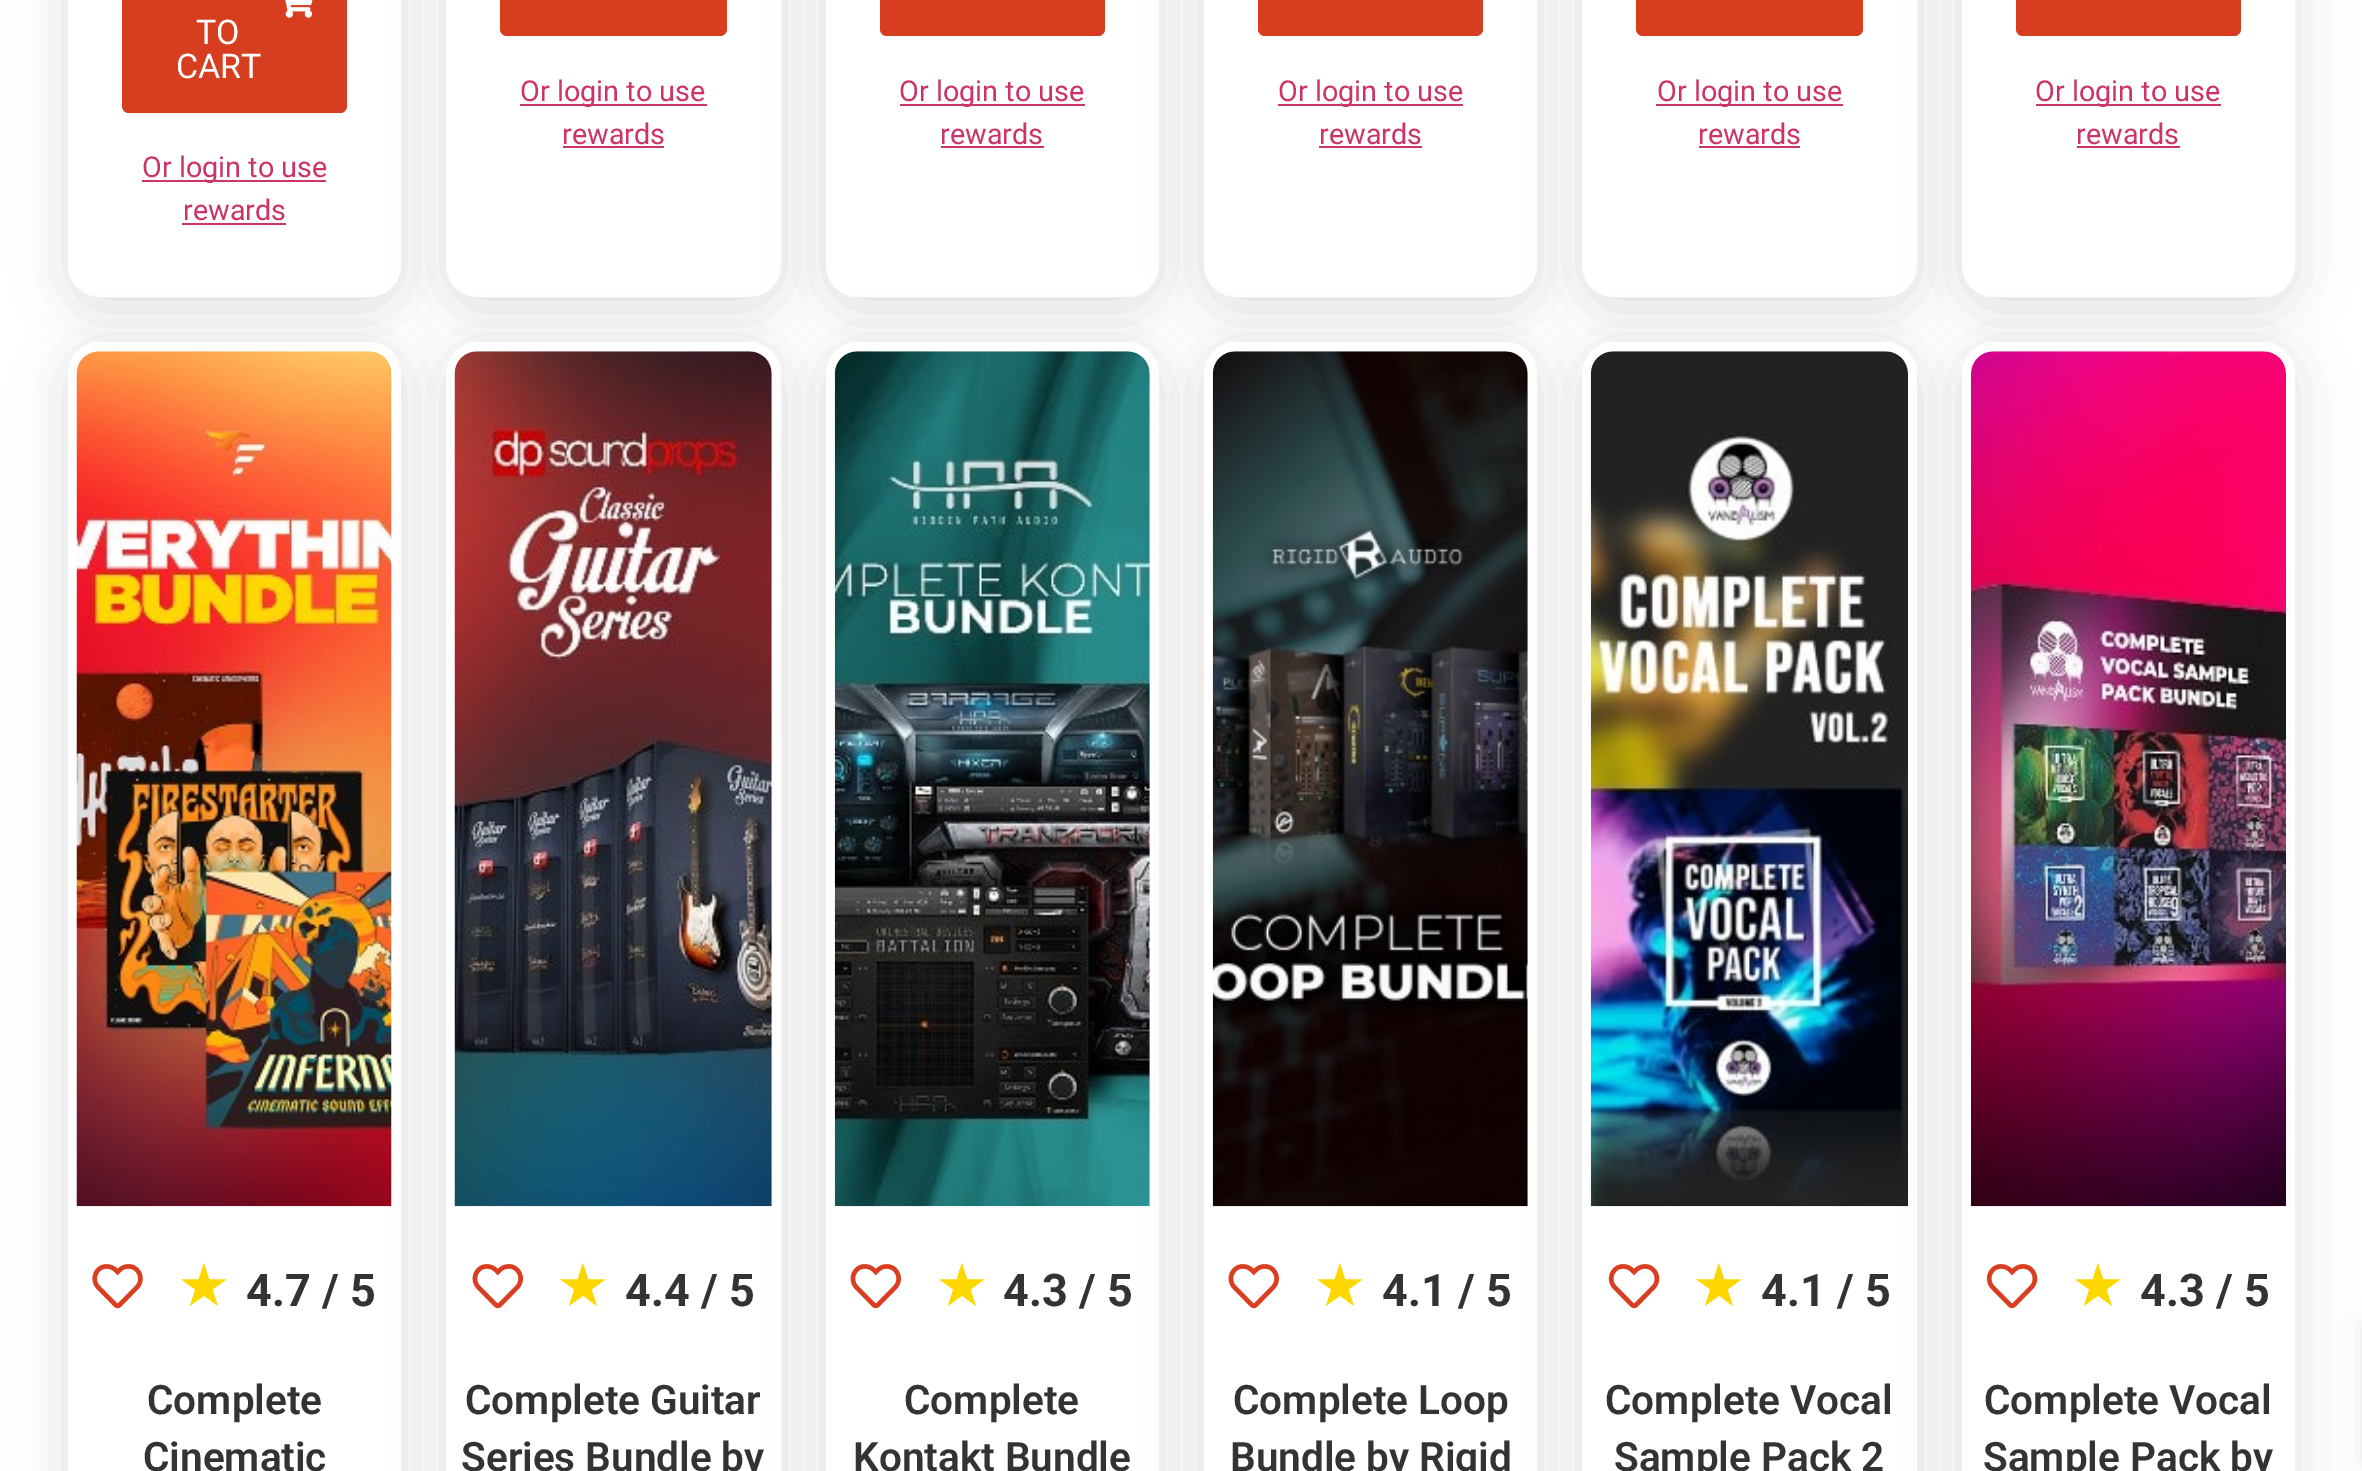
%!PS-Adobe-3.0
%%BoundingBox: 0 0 2362 1471
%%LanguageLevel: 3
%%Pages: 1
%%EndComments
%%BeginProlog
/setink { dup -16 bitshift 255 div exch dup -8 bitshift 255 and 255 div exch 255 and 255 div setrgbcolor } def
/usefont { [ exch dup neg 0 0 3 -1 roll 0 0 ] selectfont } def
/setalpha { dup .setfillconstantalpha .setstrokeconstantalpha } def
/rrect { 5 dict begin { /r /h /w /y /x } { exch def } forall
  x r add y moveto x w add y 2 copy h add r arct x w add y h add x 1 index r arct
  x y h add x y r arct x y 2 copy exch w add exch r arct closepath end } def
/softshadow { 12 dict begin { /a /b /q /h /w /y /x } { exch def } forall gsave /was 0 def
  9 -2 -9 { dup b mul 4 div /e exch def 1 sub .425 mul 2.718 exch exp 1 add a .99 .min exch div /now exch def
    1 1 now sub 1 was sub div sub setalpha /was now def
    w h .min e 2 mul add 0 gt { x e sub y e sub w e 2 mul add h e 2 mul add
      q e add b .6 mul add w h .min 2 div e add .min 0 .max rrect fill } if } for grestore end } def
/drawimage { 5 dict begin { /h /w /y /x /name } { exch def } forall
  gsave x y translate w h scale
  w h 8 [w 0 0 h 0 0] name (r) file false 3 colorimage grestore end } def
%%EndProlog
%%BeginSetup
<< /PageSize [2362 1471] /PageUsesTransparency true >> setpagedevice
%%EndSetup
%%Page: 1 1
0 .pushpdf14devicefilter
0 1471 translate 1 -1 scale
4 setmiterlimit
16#FFFFFF setink
0 0 2362 1471 rectfill
16#000000 setink
68 -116 333 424 32 28 0.12 softshadow
16#FFFFFF setink
72.5 -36.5 324 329 27.5 rrect gsave fill grestore
9 setlinewidth
stroke
16#D73E1F setink
122 -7 225 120 7 rrect fill
(img1.raw) 285 0 28 18 drawimage
/Roboto-Regular 34 usefont
16#FFFFFF setink
196 44 moveto (TO) show
176 78 moveto (CART) show
16#CC3366 setink
142 180 184 2 rectfill
/Roboto-Regular 28.75 usefont
142 177 moveto (Or login to use) show
183 220 moveto (rewards) show
182 223 104 2 rectfill
16#000000 setink
446 -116 335 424 32 28 0.12 softshadow
16#FFFFFF setink
450.5 -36.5 326 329 27.5 rrect gsave fill grestore
stroke
16#D73E1F setink
500 -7 227 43 7 rrect fill
16#CC3366 setink
520 104 187 2 rectfill
520 101 moveto (Or login to use) show
562 144 moveto (rewards) show
563 146 101 2 rectfill
16#000000 setink
826 -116 333 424 32 28 0.12 softshadow
16#FFFFFF setink
830.5 -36.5 324 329 27.5 rrect gsave fill grestore
stroke
16#D73E1F setink
880 -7 225 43 7 rrect fill
16#CC3366 setink
900 104 185 2 rectfill
899 101 moveto (Or login to use) show
940 144 moveto (rewards) show
941 146 103 2 rectfill
16#000000 setink
1204 -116 333 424 32 28 0.12 softshadow
16#FFFFFF setink
1208.5 -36.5 324 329 27.5 rrect gsave fill grestore
stroke
16#D73E1F setink
1258 -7 225 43 7 rrect fill
16#CC3366 setink
1278 104 185 2 rectfill
1278 101 moveto (Or login to use) show
1319 144 moveto (rewards) show
1319 146 103 2 rectfill
16#000000 setink
1582 -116 335 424 32 28 0.12 softshadow
16#FFFFFF setink
1586.5 -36.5 326 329 27.5 rrect gsave fill grestore
stroke
16#D73E1F setink
1636 -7 227 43 7 rrect fill
16#CC3366 setink
1656 104 187 2 rectfill
1657 101 moveto (Or login to use) show
1698 144 moveto (rewards) show
1699 146 101 2 rectfill
16#000000 setink
1962 -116 333 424 32 28 0.12 softshadow
16#FFFFFF setink
1966.5 -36.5 324 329 27.5 rrect gsave fill grestore
stroke
16#D73E1F setink
2016 -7 225 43 7 rrect fill
16#CC3366 setink
2036 104 185 2 rectfill
2035 101 moveto (Or login to use) show
2076 144 moveto (rewards) show
2077 146 103 2 rectfill
16#000000 setink
68 353 333 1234 32 28 0.12 softshadow
16#FFFFFF setink
68 342 333 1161 32 rrect fill
(img2.raw) 76 351 316 856 drawimage
(img3.raw) 92 1264 51 45 drawimage
/DejaVuSans-Regular 60 usefont
16#FFD700 setink
177 1306 moveto (★) show
/Roboto-Bold 45 usefont
16#333333 setink
246 1306 moveto (4.7 / 5) show
/Roboto-SemiBold 40.5 usefont
147 1414 moveto (Complete) show
143 1471 moveto (Cinematic) show
16#000000 setink
446 353 335 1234 32 28 0.12 softshadow
16#FFFFFF setink
450.5 346.5 326 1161 27.5 rrect gsave fill grestore
stroke
(img4.raw) 454 351 318 856 drawimage
(img5.raw) 472 1264 51 45 drawimage
/DejaVuSans-Regular 60 usefont
16#FFD700 setink
556 1306 moveto (★) show
/Roboto-Bold 45 usefont
16#333333 setink
625 1306 moveto (4.4 / 5) show
/Roboto-SemiBold 40.5 usefont
465 1414 moveto (Complete Guitar) show
461 1471 moveto (Series Bundle by) show
16#000000 setink
826 353 333 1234 32 28 0.12 softshadow
16#FFFFFF setink
830.5 346.5 324 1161 27.5 rrect gsave fill grestore
stroke
(img6.raw) 834 351 316 856 drawimage
(img5.raw) 850 1264 51 45 drawimage
/DejaVuSans-Regular 60 usefont
16#FFD700 setink
935 1306 moveto (★) show
/Roboto-Bold 45 usefont
16#333333 setink
1003 1306 moveto (4.3 / 5) show
/Roboto-SemiBold 40.5 usefont
904 1414 moveto (Complete) show
853 1471 moveto (Kontakt Bundle) show
16#000000 setink
1204 353 333 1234 32 28 0.12 softshadow
16#FFFFFF setink
1208.5 346.5 324 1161 27.5 rrect gsave fill grestore
stroke
(img7.raw) 1212 351 316 856 drawimage
(img5.raw) 1228 1264 51 45 drawimage
/DejaVuSans-Regular 60 usefont
16#FFD700 setink
1313 1306 moveto (★) show
/Roboto-Bold 45 usefont
16#333333 setink
1382 1306 moveto (4.1 / 5) show
/Roboto-SemiBold 40.5 usefont
1233 1414 moveto (Complete Loop) show
1230 1471 moveto (Bundle by Rigid) show
16#000000 setink
1582 353 335 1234 32 28 0.12 softshadow
16#FFFFFF setink
1582 342 335 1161 32 rrect fill
(img8.raw) 1590 351 318 856 drawimage
(img9.raw) 1608 1264 52 45 drawimage
/DejaVuSans-Regular 60 usefont
16#FFD700 setink
1692 1306 moveto (★) show
/Roboto-Bold 45 usefont
16#333333 setink
1761 1306 moveto (4.1 / 5) show
/Roboto-SemiBold 40.5 usefont
1605 1414 moveto (Complete Vocal) show
1614 1471 moveto (Sample Pack 2) show
16#000000 setink
1962 353 333 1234 32 28 0.12 softshadow
16#FFFFFF setink
1962 342 333 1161 32 rrect fill
(img10.raw) 1971 351 315 856 drawimage
(img9.raw) 1986 1264 52 45 drawimage
/DejaVuSans-Regular 60 usefont
16#FFD700 setink
2071 1306 moveto (★) show
/Roboto-Bold 45 usefont
16#333333 setink
2140 1306 moveto (4.3 / 5) show
/Roboto-SemiBold 40.5 usefont
1984 1414 moveto (Complete Vocal) show
1983 1471 moveto (Sample Pack by) show
16#000000 setink
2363 1325 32 135 0 11 0.1 softshadow
.poppdf14devicefilter showpage
%%EOF
